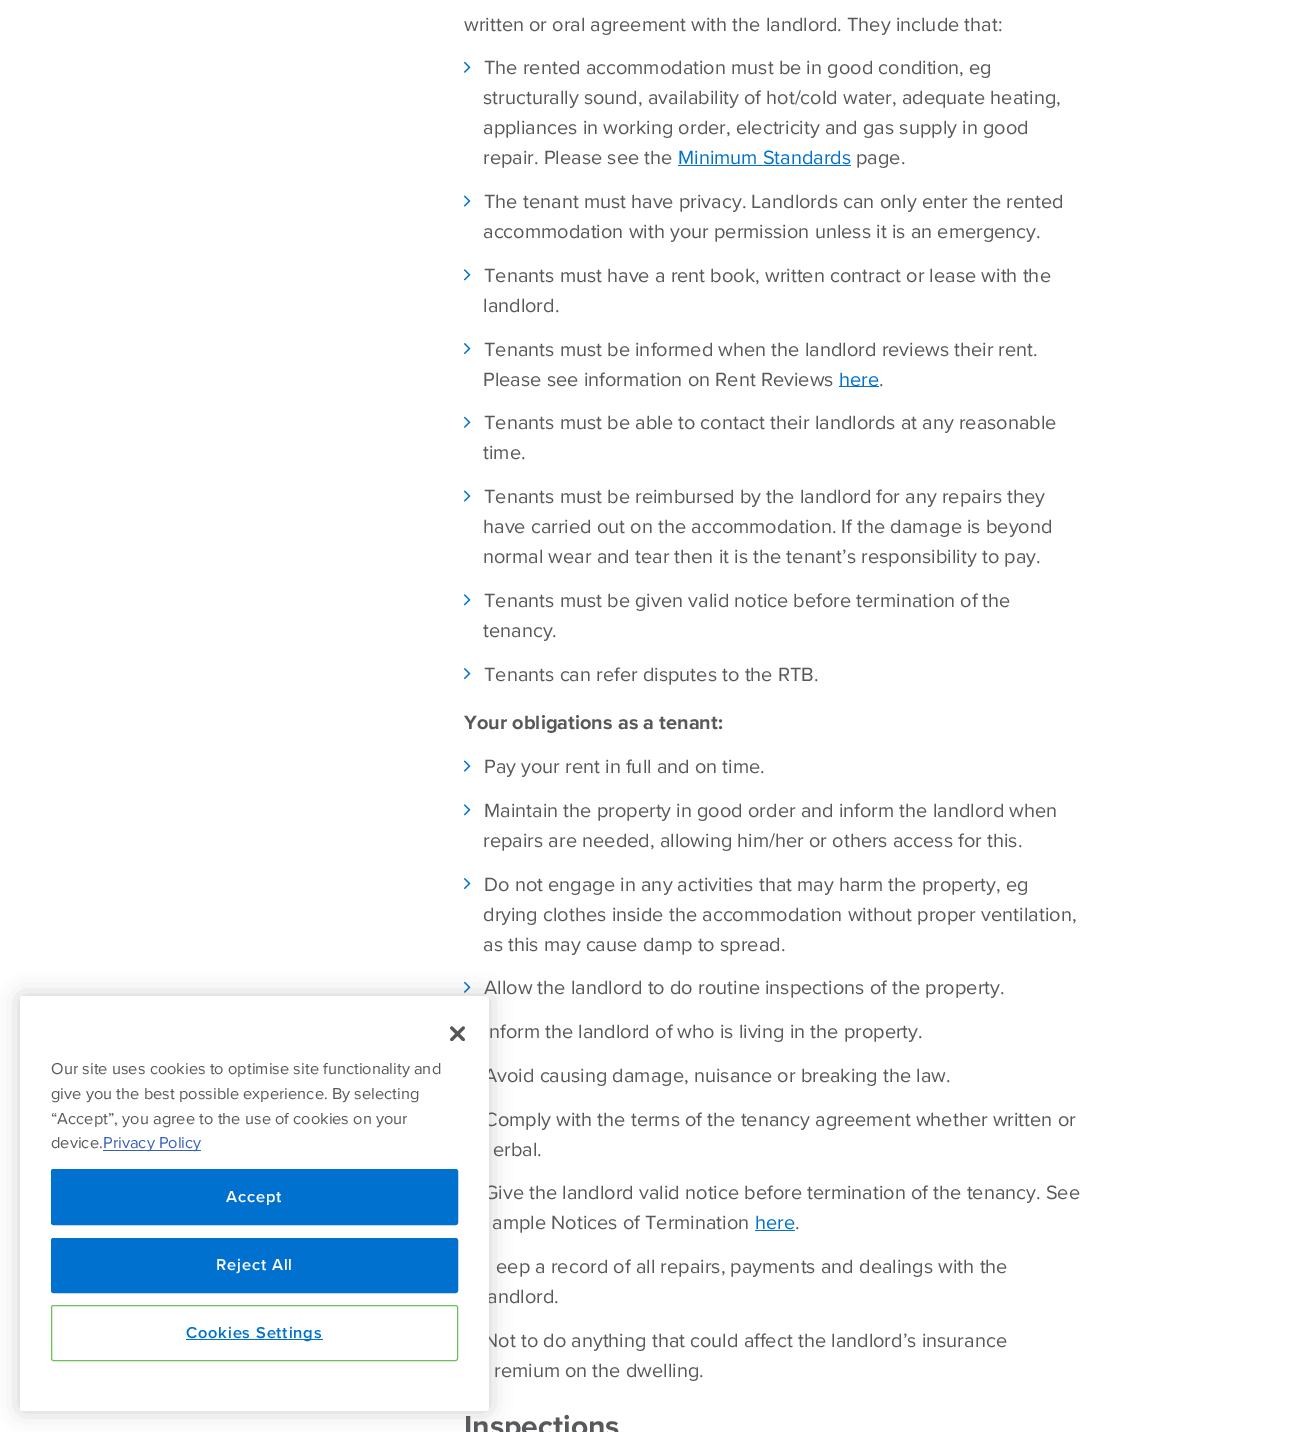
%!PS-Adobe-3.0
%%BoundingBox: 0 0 1295 1432
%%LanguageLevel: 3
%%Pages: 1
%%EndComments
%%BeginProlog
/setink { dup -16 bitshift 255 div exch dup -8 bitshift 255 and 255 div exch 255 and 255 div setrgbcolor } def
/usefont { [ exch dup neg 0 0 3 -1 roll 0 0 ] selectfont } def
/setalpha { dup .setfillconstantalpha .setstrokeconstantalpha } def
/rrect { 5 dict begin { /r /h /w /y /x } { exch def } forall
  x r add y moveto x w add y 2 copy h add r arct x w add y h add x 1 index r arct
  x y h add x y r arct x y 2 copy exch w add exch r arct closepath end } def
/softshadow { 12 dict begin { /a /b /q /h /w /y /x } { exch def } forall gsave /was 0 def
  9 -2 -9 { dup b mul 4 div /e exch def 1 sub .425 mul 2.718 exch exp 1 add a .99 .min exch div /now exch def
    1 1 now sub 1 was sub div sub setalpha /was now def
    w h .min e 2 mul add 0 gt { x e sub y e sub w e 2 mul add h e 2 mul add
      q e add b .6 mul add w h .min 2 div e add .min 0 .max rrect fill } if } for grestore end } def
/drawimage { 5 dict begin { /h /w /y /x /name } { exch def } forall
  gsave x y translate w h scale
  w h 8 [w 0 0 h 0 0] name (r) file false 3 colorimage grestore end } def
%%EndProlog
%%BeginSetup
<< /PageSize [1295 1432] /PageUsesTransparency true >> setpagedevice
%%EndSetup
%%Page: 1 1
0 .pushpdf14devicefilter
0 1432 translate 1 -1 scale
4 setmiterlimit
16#FFFFFF setink
0 0 1295 1432 rectfill
(img2.raw) 463 981 8 12 drawimage
16#000000 setink
20 996 469 415 3 11 0.2 softshadow
/ProximaNova-Regular 20 usefont
16#58595B setink
[
    [(Allow the landlord to do routine inspections of the property.) 484 994]
    [(Avoid causing damage, nuisance or breaking the law.) 484 1082]
    [(Comply with the terms of the tenancy agreement whether written or) 484 1126]
    [(Give the landlord valid notice before termination of the tenancy. See) 484 1199]
    [(andlord.) 487 1303]
    [(Not to do anything that could affect the landlord’s insurance) 484 1347]
] { aload pop moveto show } forall
16#FFFFFF setink
20 996 469 415 3 rrect fill
(img1.raw) 450 1026 15 15 drawimage
/ProximaNova-Regular 16.4 usefont
16#58595B setink
[
    [(Our site uses cookies to optimise site functionality and) 51 1074]
    [(give you the best possible experience. By selecting) 51 1099]
    [(“Accept”, you agree to the use of cookies on your) 51 1124]
    [(device.) 51 1148]
] { aload pop moveto show } forall
16#3860BE setink
103 1150 98 1 rectfill
103 1148 moveto (Privacy Policy) show
16#0071CE setink
51.5 1169.5 406 55 2 rrect gsave fill grestore
stroke
/ProximaNova-SemiBold 16.4 usefont
16#FFFFFF setink
226 1202 moveto 0.8 0 (Accept) ashow
16#0071CE setink
51.5 1238.5 406 54 2 rrect gsave fill grestore
stroke
16#FFFFFF setink
216 1270 moveto 0.8 0 (Reject All) ashow
16#6DBF58 setink
51.5 1305.5 406 55 2 rrect stroke
16#0071CE setink
186 1339 137 1 rectfill
186 1338 moveto 0.8 0 (Cookies Settings) ashow
/ProximaNova-Regular 20 usefont
16#58595B setink
464 31 moveto (written or oral agreement with the landlord. They include that:) show
(img2.raw) 463 61 8 12 drawimage
[
    [(The rented accommodation must be in good condition, eg) 484 74]
    [(structurally sound, availability of hot/cold water, adequate heating,) 483 104]
    [(appliances in working order, electricity and gas supply in good) 483 134]
    [(repair. Please see the) 483 164]
] { aload pop moveto show } forall
16#0071CE setink
678 164 moveto (Minimum Standards) show
678 165 173 1 rectfill
16#58595B setink
856 164 moveto (page.) show
(img3.raw) 463 195 8 12 drawimage
484 208 moveto (The tenant must have privacy. Landlords can only enter the rented) show
483 238 moveto (accommodation with your permission unless it is an emergency.) show
(img4.raw) 463 269 8 12 drawimage
484 282 moveto (Tenants must have a rent book, written contract or lease with the) show
483 312 moveto (landlord.) show
(img5.raw) 463 343 8 12 drawimage
484 356 moveto (Tenants must be informed when the landlord reviews their rent.) show
483 386 moveto (Please see information on Rent Reviews) show
16#0071CE setink
839 386 40 1 rectfill
839 386 moveto (here) show
16#58595B setink
879 386 moveto (.) show
(img2.raw) 463 416 8 12 drawimage
484 429 moveto (Tenants must be able to contact their landlords at any reasonable) show
483 459 moveto (time.) show
(img3.raw) 463 490 8 12 drawimage
[
    [(Tenants must be reimbursed by the landlord for any repairs they) 484 503]
    [(have carried out on the accommodation. If the damage is beyond) 483 533]
    [(normal wear and tear then it is the tenant’s responsibility to pay.) 483 563]
] { aload pop moveto show } forall
(img4.raw) 463 594 8 12 drawimage
484 607 moveto (Tenants must be given valid notice before termination of the) show
483 637 moveto (tenancy.) show
(img5.raw) 463 668 8 12 drawimage
484 681 moveto (Tenants can refer disputes to the RTB.) show
/ProximaNova-Bold 20 usefont
464 729 moveto (Your obligations as a tenant:) show
(img3.raw) 463 760 8 12 drawimage
/ProximaNova-Regular 20 usefont
484 773 moveto (Pay your rent in full and on time.) show
(img4.raw) 463 804 8 12 drawimage
484 817 moveto (Maintain the property in good order and inform the landlord when) show
483 847 moveto (repairs are needed, allowing him/her or others access for this.) show
(img5.raw) 463 878 8 12 drawimage
[
    [(Do not engage in any activities that may harm the property, eg) 484 891]
    [(drying clothes inside the accommodation without proper ventilation,) 483 921]
    [(as this may cause damp to spread.) 483 951]
    [(nform the landlord of who is living in the property.) 489 1038]
    [(erbal.) 493 1156]
    [(ample Notices of Termination) 492 1229]
] { aload pop moveto show } forall
16#0071CE setink
755 1229 moveto (here) show
755 1230 40 1 rectfill
16#58595B setink
[
    [(.) 795 1229]
    [(eep a record of all repairs, payments and dealings with the) 496 1273]
    [(remium on the dwelling.) 494 1377]
] { aload pop moveto show } forall
/ProximaNova-Bold 30 usefont
464 1436 moveto (Inspections) show
.poppdf14devicefilter showpage
%%EOF
